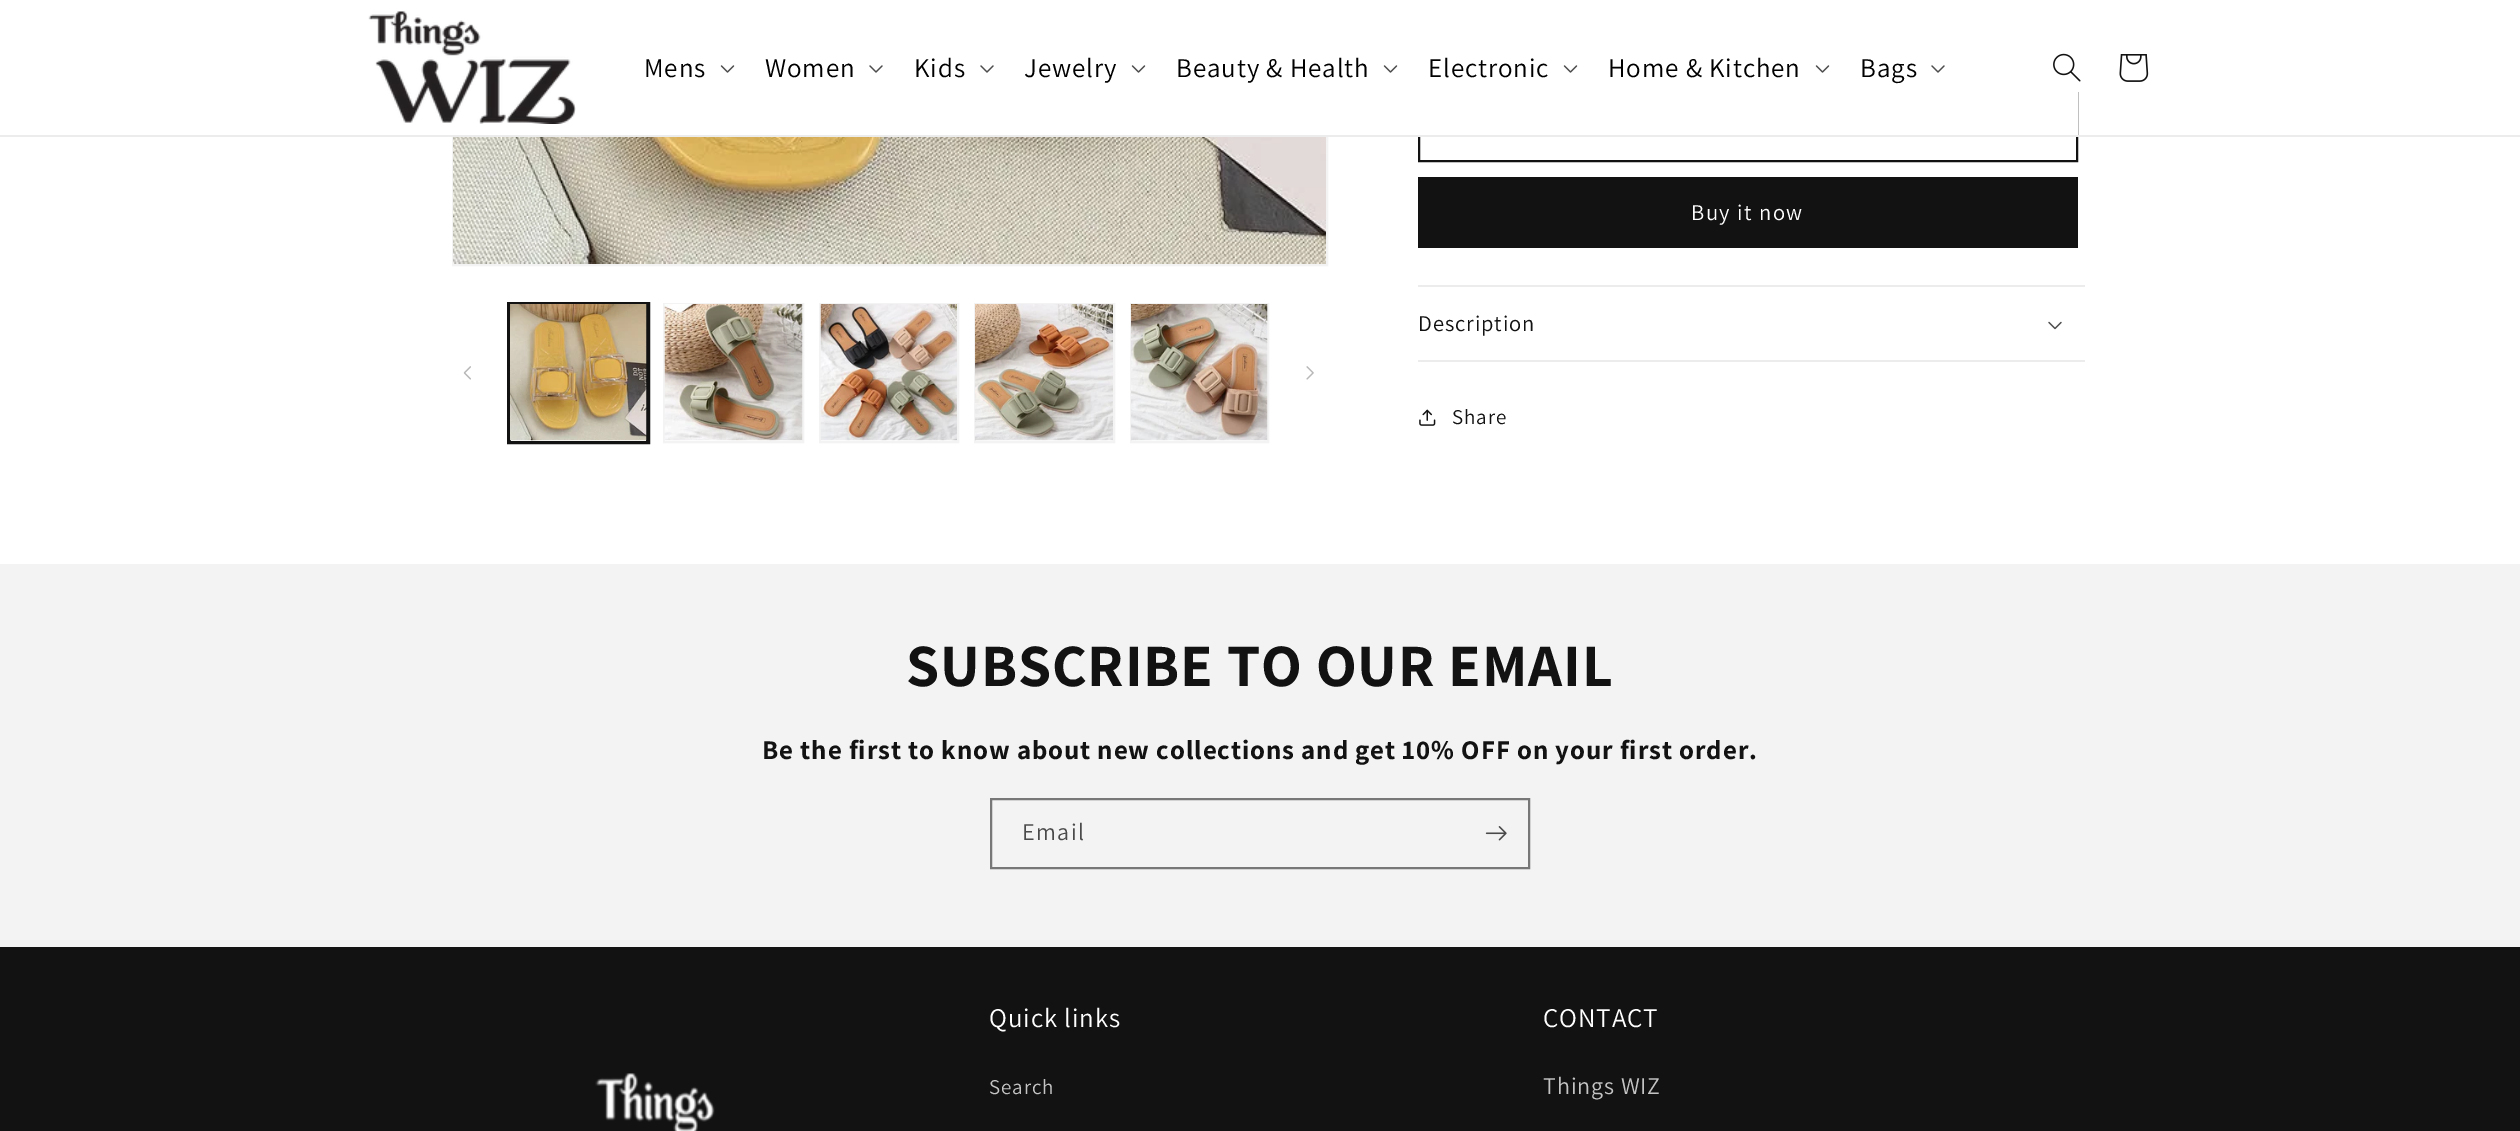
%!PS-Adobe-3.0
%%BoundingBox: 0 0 2520 1131
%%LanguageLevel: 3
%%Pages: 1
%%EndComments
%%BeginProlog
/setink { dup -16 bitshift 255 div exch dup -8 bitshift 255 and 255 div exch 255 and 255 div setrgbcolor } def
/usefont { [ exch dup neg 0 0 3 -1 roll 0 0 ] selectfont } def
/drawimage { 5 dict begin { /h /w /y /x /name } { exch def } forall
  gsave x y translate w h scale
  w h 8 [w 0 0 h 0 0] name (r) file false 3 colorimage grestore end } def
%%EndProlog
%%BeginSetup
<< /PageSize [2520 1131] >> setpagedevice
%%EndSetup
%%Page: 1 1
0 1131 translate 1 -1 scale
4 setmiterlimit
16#FFFFFF setink
0 0 2520 1131 rectfill
16#F3F3F3 setink
2 setlinewidth
453 -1 874 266 rectstroke
16#121212 setink
1419 93 658 68 rectstroke
16#FFFFFF setink
452 0 1626 135 rectfill
16#ECECEC setink
0 135 2520 2 rectfill
(img1.raw) 368 11 208 113 drawimage
/Assistant-Regular 27 usefont
16#000000 setink
644 77 moveto 0.9 0 (Mens) ashow
(img2.raw) 720 65 15 8 drawimage
765 77 moveto 0.9 0 (Women) ashow
(img3.raw) 869 65 14 8 drawimage
914 77 moveto 0.9 0 (Kids) ashow
(img3.raw) 980 65 14 8 drawimage
1024 77 moveto 0.9 0 (Jewelry) ashow
(img2.raw) 1131 65 15 8 drawimage
1176 77 moveto 0.9 0 (Beauty & Health) ashow
(img2.raw) 1383 65 15 8 drawimage
1428 77 moveto 0.9 0 (Electronic) ashow
(img2.raw) 1563 65 15 8 drawimage
1608 77 moveto 0.9 0 (Home & Kitchen) ashow
(img2.raw) 1815 65 15 8 drawimage
1860 77 moveto 0.9 0 (Bags) ashow
(img3.raw) 1931 65 14 8 drawimage
(img4.raw) 2053 53 28 29 drawimage
(img5.raw) 2119 54 30 28 drawimage
(img6.raw) 453 137 873 127 drawimage
(img7.raw) 463 366 8 14 drawimage
16#121212 setink
508 303 141 140 rectstroke
510 304 137 138 rectstroke
(img8.raw) 510 304 137 137 drawimage
16#F3F3F3 setink
664 304 139 138 rectstroke
(img9.raw) 664 304 139 137 drawimage
820 304 138 138 rectstroke
(img10.raw) 820 304 137 137 drawimage
975 304 139 138 rectstroke
(img11.raw) 975 304 138 137 drawimage
1131 304 137 138 rectstroke
(img12.raw) 1131 304 137 137 drawimage
(img13.raw) 1306 366 8 14 drawimage
16#121212 setink
1418 177 660 71 rectfill
/Assistant-Regular 22.5 usefont
16#FFFFFF setink
1691 220 moveto 1.5 0 (Buy it now) ashow
16#ECECEC setink
1418 285 667 2 rectfill
1418 360 667 2 rectfill
16#121212 setink
1418 331 moveto 0.9 0 (Description) ashow
(img14.raw) 2048 321 14 9 drawimage
(img15.raw) 1419 409 17 17 drawimage
/Assistant-Regular 21 usefont
1452 424 moveto 0.9 0 (Share) ashow
16#F3F3F3 setink
0 564 2520 383 rectfill
/Assistant-Bold 60 usefont
16#121212 setink
906 686 moveto 0.9 0 (SUBSCRIBE TO OUR EMAIL) ashow
/Assistant-Bold 27 usefont
762 759 moveto 0.9 0 (Be the first to know about new collections and get 10% OFF on your first order.) ashow
16#777777 setink
991 799 538 69 rectstroke
/Assistant-Regular 24 usefont
16#4A4A4A setink
1022 840 moveto 1.5 0 (Email) ashow
(img16.raw) 1485 826 22 15 drawimage
16#121212 setink
0 947 2520 184 rectfill
(img17.raw) 595 1073 120 58 drawimage
/Assistant-Regular 27 usefont
16#FFFFFF setink
989 1027 moveto 0.9 0 (Quick links) ashow
/Assistant-Regular 21 usefont
16#C4C4C4 setink
989 1094 moveto 0.9 0 (Search) ashow
/Assistant-Regular 27 usefont
16#FFFFFF setink
1543 1027 moveto 0.9 0 (CONTACT) ashow
/Assistant-Regular 24 usefont
16#C4C4C4 setink
1543 1094 moveto 0.9 0 (Things WIZ) ashow
showpage
%%EOF
